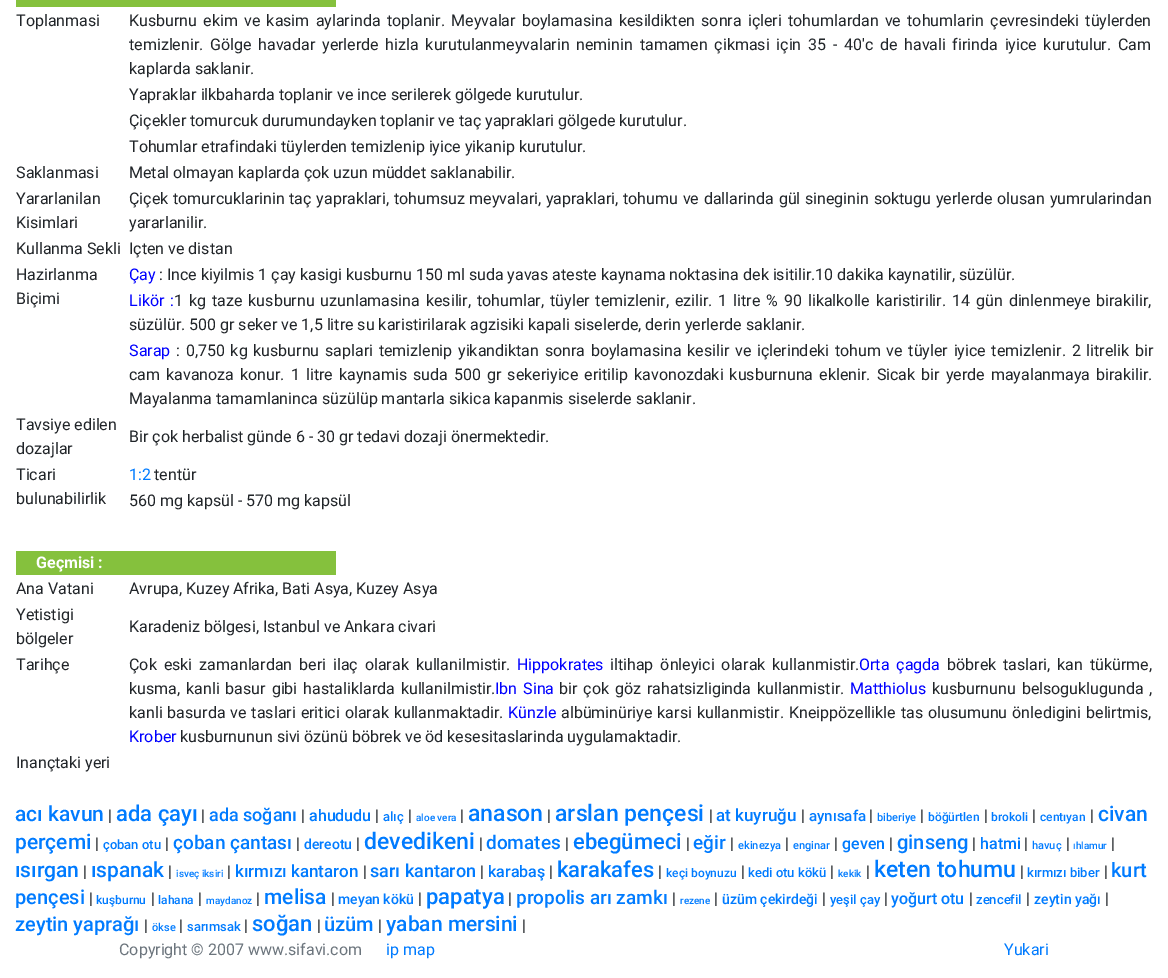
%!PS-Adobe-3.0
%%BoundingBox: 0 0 1168 978
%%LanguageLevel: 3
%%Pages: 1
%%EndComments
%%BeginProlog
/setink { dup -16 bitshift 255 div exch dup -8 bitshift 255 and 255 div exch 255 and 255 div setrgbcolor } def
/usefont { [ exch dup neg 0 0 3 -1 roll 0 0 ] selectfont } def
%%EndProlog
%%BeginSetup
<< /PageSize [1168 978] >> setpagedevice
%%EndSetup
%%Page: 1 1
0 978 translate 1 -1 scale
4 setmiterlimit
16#FFFFFF setink
0 0 1168 978 rectfill
16#85C13D setink
16 0 320 7 rectfill
/Roboto-Regular 16 usefont
16#212529 setink
16 26 moveto (Toplanmasi) show
129 26 moveto 2.25 0 32 (Kusburnu ekim ve kasim aylarinda toplanir. Meyvalar boylamasina kesildikten sonra içleri tohumlardan ve tohumlarin çevresindeki tüylerden) widthshow
129 50 moveto 2.75 0 32 (temizlenir. Gölge havadar yerlerde hizla kurutulanmeyvalarin neminin tamamen çikmasi için 35 - 40'c de havali firinda iyice kurutulur. Cam) widthshow
[
    [(kaplarda saklanir.) 129 74]
    [(Yapraklar ilkbaharda toplanir ve ince serilerek gölgede kurutulur.) 129 100]
    [(Çiçekler tomurcuk durumundayken toplanir ve taç yapraklari gölgede kurutulur.) 129 126]
    [(Tohumlar etrafindaki tüylerden temizlenip iyice yikanip kurutulur.) 129 152]
    [(Saklanmasi) 16 178]
    [(Metal olmayan kaplarda çok uzun müddet saklanabilir.) 129 178]
    [(Yararlanilan) 16 204]
    [(Kisimlari) 16 228]
] { aload pop moveto show } forall
129 204 moveto 0.8 0 32 (Çiçek tomurcuklarinin taç yapraklari, tohumsuz meyvalari, yapraklari, tohumu ve dallarinda gül sineginin soktugu yerlerde olusan yumrularindan) widthshow
[
    [(yararlanilir.) 129 228]
    [(Kullanma Sekli) 16 254]
    [(Içten ve distan) 129 254]
    [(Hazirlanma) 16 280]
    [(Biçimi) 16 304]
] { aload pop moveto show } forall
16#0000FF setink
129 280 moveto (Çay) show
16#212529 setink
159 280 moveto (: Ince kiyilmis 1 çay kasigi kusburnu 150 ml suda yavas ateste kaynama noktasina dek isitilir.10 dakika kaynatilir, süzülür.) show
16#0000FF setink
129 306 moveto 2.1 0 32 (Likör :) widthshow
16#212529 setink
174 306 moveto 2 0 32 (1 kg taze kusburnu uzunlamasina kesilir, tohumlar, tüyler temizlenir, ezilir. 1 litre % 90 likalkolle karistirilir. 14 gün dinlenmeye birakilir,) widthshow
129 330 moveto (süzülür. 500 gr seker ve 1,5 litre su karistirilarak agzisiki kapali siselerde, derin yerlerde saklanir.) show
16#0000FF setink
129 356 moveto (Sarap) show
16#212529 setink
176 356 moveto 1.75 0 32 (: 0,750 kg kusburnu saplari temizlenip yikandiktan sonra boylamasina kesilir ve içlerindeki tohum ve tüyler iyice temizlenir. 2 litrelik bir) widthshow
129 380 moveto 2.1 0 32 (cam kavanoza konur. 1 litre kaynamis suda 500 gr sekeriyice eritilip kavonozdaki kusburnuna eklenir. Sicak bir yerde mayalanmaya birakilir.) widthshow
[
    [(Mayalanma tamamlaninca süzülüp mantarla sikica kapanmis siselerde saklanir.) 129 404]
    [(Tavsiye edilen) 16 430]
    [(dozajlar) 16 454]
    [(Bir çok herbalist günde 6 - 30 gr tedavi dozaji önermektedir.) 129 442]
    [(Ticari) 16 480]
    [(bulunabilirlik) 16 504]
] { aload pop moveto show } forall
16#007BFF setink
129 480 moveto (1:2) show
16#212529 setink
154 480 moveto (tentür) show
129 506 moveto (560 mg kapsül - 570 mg kapsül) show
16#85C13D setink
16 551 320 24 rectfill
/Roboto-Bold 16 usefont
16#FFFFFF setink
36 568 moveto (Geçmisi :) show
/Roboto-Regular 16 usefont
16#212529 setink
[
    [(Ana Vatani) 16 594]
    [(Avrupa, Kuzey Afrika, Bati Asya, Kuzey Asya) 129 594]
    [(Yetistigi) 16 620]
    [(bölgeler) 16 644]
    [(Karadeniz bölgesi, Istanbul ve Ankara civari) 129 632]
    [(Tarihçe) 16 670]
] { aload pop moveto show } forall
129 670 moveto 3 0 32 (Çok eski zamanlardan beri ilaç olarak kullanilmistir.) widthshow
16#0000FF setink
517 670 moveto (Hippokrates) show
16#212529 setink
610 670 moveto 3 0 32 (iltihap önleyici olarak kullanmistir.) widthshow
16#0000FF setink
859 670 moveto 3 0 32 (Orta çagda) widthshow
16#212529 setink
947 670 moveto 3 0 32 (böbrek taslari, kan tükürme,) widthshow
129 694 moveto 2 0 32 (kusma, kanli basur gibi hastaliklarda kullanilmistir.) widthshow
16#0000FF setink
495 694 moveto 2 0 32 (Ibn Sina) widthshow
16#212529 setink
559 694 moveto 2 0 32 (bir çok göz rahatsizliginda kullanmistir.) widthshow
16#0000FF setink
850 694 moveto (Matthiolus) show
16#212529 setink
932 694 moveto 2 0 32 (kusburnunu belsoguklugunda ,) widthshow
129 718 moveto 1 0 32 (kanli basurda ve taslari eritici olarak kullanmaktadir.) widthshow
16#0000FF setink
508 718 moveto (Künzle) show
16#212529 setink
561 718 moveto 1 0 32 (albüminüriye karsi kullanmistir. Kneippözellikle tas olusumunu önledigini belirtmis,) widthshow
16#0000FF setink
129 742 moveto (Krober) show
16#212529 setink
180 742 moveto (kusburnunun sivi özünü böbrek ve öd kesesitaslarinda uygulamaktadir.) show
16 768 moveto (Inançtaki yeri) show
/Roboto-Medium 21 usefont
16#007BFF setink
15 821 moveto (acı kavun) show
/Roboto-Regular 16 usefont
16#212529 setink
108 821 moveto (|) show
/Roboto-Medium 22 usefont
16#007BFF setink
116 821 moveto (ada çayı) show
/Roboto-Regular 16 usefont
16#212529 setink
201 821 moveto (|) show
/Roboto-Medium 18 usefont
16#007BFF setink
209 821 moveto (ada soğanı) show
/Roboto-Regular 16 usefont
16#212529 setink
301 821 moveto (|) show
/Roboto-Medium 16 usefont
16#007BFF setink
309 821 moveto (ahududu) show
/Roboto-Regular 16 usefont
16#212529 setink
375 821 moveto (|) show
/Roboto-Medium 13 usefont
16#007BFF setink
383 821 moveto (alıç) show
/Roboto-Regular 16 usefont
16#212529 setink
408 821 moveto (|) show
/Roboto-Medium 10 usefont
16#007BFF setink
416 821 moveto (aloe vera) show
/Roboto-Regular 16 usefont
16#212529 setink
460 821 moveto (|) show
/Roboto-Medium 23 usefont
16#007BFF setink
468 821 moveto (anason) show
/Roboto-Regular 16 usefont
16#212529 setink
547 821 moveto (|) show
/Roboto-Medium 23 usefont
16#007BFF setink
555 821 moveto (arslan pençesi) show
/Roboto-Regular 16 usefont
16#212529 setink
709 821 moveto (|) show
/Roboto-Medium 17 usefont
16#007BFF setink
716 821 moveto (at kuyruğu) show
/Roboto-Regular 16 usefont
16#212529 setink
801 821 moveto (|) show
/Roboto-Medium 15 usefont
16#007BFF setink
809 821 moveto (aynısafa) show
/Roboto-Regular 16 usefont
16#212529 setink
869 821 moveto (|) show
/Roboto-Medium 11 usefont
16#007BFF setink
877 821 moveto (biberiye) show
/Roboto-Regular 16 usefont
16#212529 setink
920 821 moveto (|) show
/Roboto-Medium 12 usefont
16#007BFF setink
928 821 moveto (böğürtlen) show
/Roboto-Regular 16 usefont
16#212529 setink
984 821 moveto (|) show
/Roboto-Medium 12 usefont
16#007BFF setink
991 821 moveto (brokoli) show
/Roboto-Regular 16 usefont
16#212529 setink
1032 821 moveto (|) show
/Roboto-Medium 12 usefont
16#007BFF setink
1040 821 moveto (centıyan) show
/Roboto-Regular 16 usefont
16#212529 setink
1090 821 moveto (|) show
/Roboto-Medium 21 usefont
16#007BFF setink
1098 821 moveto (civan) show
15 849 moveto (perçemi) show
/Roboto-Regular 16 usefont
16#212529 setink
95 849 moveto (|) show
/Roboto-Medium 13 usefont
16#007BFF setink
103 849 moveto (çoban otu) show
/Roboto-Regular 16 usefont
16#212529 setink
165 849 moveto (|) show
/Roboto-Medium 19 usefont
16#007BFF setink
173 849 moveto (çoban çantası) show
/Roboto-Regular 16 usefont
16#212529 setink
296 849 moveto (|) show
/Roboto-Medium 14 usefont
16#007BFF setink
304 849 moveto (dereotu) show
/Roboto-Regular 16 usefont
16#212529 setink
356 849 moveto (|) show
/Roboto-Medium 23 usefont
16#007BFF setink
364 849 moveto (devedikeni) show
/Roboto-Regular 16 usefont
16#212529 setink
479 849 moveto (|) show
/Roboto-Medium 19 usefont
16#007BFF setink
486 849 moveto (domates) show
/Roboto-Regular 16 usefont
16#212529 setink
565 849 moveto (|) show
/Roboto-Medium 22 usefont
16#007BFF setink
573 849 moveto (ebegümeci) show
/Roboto-Regular 16 usefont
16#212529 setink
686 849 moveto (|) show
/Roboto-Medium 19 usefont
16#007BFF setink
693 849 moveto (eğir) show
/Roboto-Regular 16 usefont
16#212529 setink
730 849 moveto (|) show
/Roboto-Medium 11 usefont
16#007BFF setink
738 849 moveto (ekinezya) show
/Roboto-Regular 16 usefont
16#212529 setink
785 849 moveto (|) show
/Roboto-Medium 11 usefont
16#007BFF setink
793 849 moveto (enginar) show
/Roboto-Regular 16 usefont
16#212529 setink
834 849 moveto (|) show
/Roboto-Medium 16 usefont
16#007BFF setink
842 849 moveto (geven) show
/Roboto-Regular 16 usefont
16#212529 setink
889 849 moveto (|) show
/Roboto-Medium 20 usefont
16#007BFF setink
897 849 moveto (ginseng) show
/Roboto-Regular 16 usefont
16#212529 setink
972 849 moveto (|) show
/Roboto-Medium 16 usefont
16#007BFF setink
980 849 moveto (hatmi) show
/Roboto-Regular 16 usefont
16#212529 setink
1024 849 moveto (|) show
/Roboto-Medium 11 usefont
16#007BFF setink
1032 849 moveto (havuç) show
/Roboto-Regular 16 usefont
16#212529 setink
1066 849 moveto (|) show
/Roboto-Medium 10 usefont
16#007BFF setink
1073 849 moveto (ıhlamur) show
/Roboto-Regular 16 usefont
16#212529 setink
1111 849 moveto (|) show
/Roboto-Medium 21 usefont
16#007BFF setink
15 877 moveto (ısırgan) show
/Roboto-Regular 16 usefont
16#212529 setink
83 877 moveto (|) show
/Roboto-Medium 21 usefont
16#007BFF setink
91 877 moveto (ıspanak) show
/Roboto-Regular 16 usefont
16#212529 setink
168 877 moveto (|) show
/Roboto-Medium 10 usefont
16#007BFF setink
176 877 moveto (isveç iksiri) show
/Roboto-Regular 16 usefont
16#212529 setink
227 877 moveto (|) show
/Roboto-Medium 17 usefont
16#007BFF setink
235 877 moveto (kırmızı kantaron) show
/Roboto-Regular 16 usefont
16#212529 setink
363 877 moveto (|) show
/Roboto-Medium 18 usefont
16#007BFF setink
370 877 moveto (sarı kantaron) show
/Roboto-Regular 16 usefont
16#212529 setink
480 877 moveto (|) show
/Roboto-Medium 16 usefont
16#007BFF setink
488 877 moveto (karabaş) show
/Roboto-Regular 16 usefont
16#212529 setink
549 877 moveto (|) show
/Roboto-Medium 22 usefont
16#007BFF setink
557 877 moveto (karakafes) show
/Roboto-Regular 16 usefont
16#212529 setink
658 877 moveto (|) show
/Roboto-Medium 12 usefont
16#007BFF setink
666 877 moveto (keçi boynuzu) show
/Roboto-Regular 16 usefont
16#212529 setink
741 877 moveto (|) show
/Roboto-Medium 13 usefont
16#007BFF setink
748 877 moveto (kedi otu kökü) show
/Roboto-Regular 16 usefont
16#212529 setink
830 877 moveto (|) show
/Roboto-Medium 10 usefont
16#007BFF setink
838 877 moveto (kekik) show
/Roboto-Regular 16 usefont
16#212529 setink
866 877 moveto (|) show
/Roboto-Medium 23 usefont
16#007BFF setink
874 877 moveto (keten tohumu) show
/Roboto-Regular 16 usefont
16#212529 setink
1020 877 moveto (|) show
/Roboto-Medium 13 usefont
16#007BFF setink
1027 877 moveto (kırmızı biber) show
/Roboto-Regular 16 usefont
16#212529 setink
1104 877 moveto (|) show
/Roboto-Medium 20 usefont
16#007BFF setink
1111 877 moveto (kurt) show
15 904 moveto (pençesi) show
/Roboto-Regular 16 usefont
16#212529 setink
89 904 moveto (|) show
/Roboto-Medium 12 usefont
16#007BFF setink
96 904 moveto (kuşburnu) show
/Roboto-Regular 16 usefont
16#212529 setink
151 904 moveto (|) show
/Roboto-Medium 12 usefont
16#007BFF setink
158 904 moveto (lahana) show
/Roboto-Regular 16 usefont
16#212529 setink
198 904 moveto (|) show
/Roboto-Medium 10 usefont
16#007BFF setink
206 904 moveto (maydanoz) show
/Roboto-Regular 16 usefont
16#212529 setink
256 904 moveto (|) show
/Roboto-Medium 21 usefont
16#007BFF setink
264 904 moveto (melisa) show
/Roboto-Regular 16 usefont
16#212529 setink
331 904 moveto (|) show
/Roboto-Medium 14 usefont
16#007BFF setink
338 904 moveto (meyan kökü) show
/Roboto-Regular 16 usefont
16#212529 setink
418 904 moveto (|) show
/Roboto-Medium 22 usefont
16#007BFF setink
426 904 moveto (papatya) show
/Roboto-Regular 16 usefont
16#212529 setink
508 904 moveto (|) show
/Roboto-Medium 19 usefont
16#007BFF setink
516 904 moveto (propolis arı zamkı) show
/Roboto-Regular 16 usefont
16#212529 setink
672 904 moveto (|) show
/Roboto-Medium 10 usefont
16#007BFF setink
680 904 moveto (rezene) show
/Roboto-Regular 16 usefont
16#212529 setink
714 904 moveto (|) show
/Roboto-Medium 14 usefont
16#007BFF setink
722 904 moveto (üzüm çekirdeği) show
/Roboto-Regular 16 usefont
16#212529 setink
822 904 moveto (|) show
/Roboto-Medium 13 usefont
16#007BFF setink
830 904 moveto (yeşil çay) show
/Roboto-Regular 16 usefont
16#212529 setink
884 904 moveto (|) show
/Roboto-Medium 16 usefont
16#007BFF setink
891 904 moveto (yoğurt otu) show
/Roboto-Regular 16 usefont
16#212529 setink
969 904 moveto (|) show
/Roboto-Medium 13 usefont
16#007BFF setink
976 904 moveto (zencefil) show
/Roboto-Regular 16 usefont
16#212529 setink
1026 904 moveto (|) show
/Roboto-Medium 14 usefont
16#007BFF setink
1034 904 moveto (zeytin yağı) show
/Roboto-Regular 16 usefont
16#212529 setink
1105 904 moveto (|) show
/Roboto-Medium 20 usefont
16#007BFF setink
15 931 moveto (zeytin yaprağı) show
/Roboto-Regular 16 usefont
16#212529 setink
144 931 moveto (|) show
/Roboto-Medium 11 usefont
16#007BFF setink
152 931 moveto (ökse) show
/Roboto-Regular 16 usefont
16#212529 setink
179 931 moveto (|) show
/Roboto-Medium 13 usefont
16#007BFF setink
187 931 moveto (sarımsak) show
/Roboto-Regular 16 usefont
16#212529 setink
244 931 moveto (|) show
/Roboto-Medium 22 usefont
16#007BFF setink
252 931 moveto (soğan) show
/Roboto-Regular 16 usefont
16#212529 setink
317 931 moveto (|) show
/Roboto-Medium 20 usefont
16#007BFF setink
324 931 moveto (üzüm) show
/Roboto-Regular 16 usefont
16#212529 setink
378 931 moveto (|) show
/Roboto-Medium 21 usefont
16#007BFF setink
386 931 moveto (yaban mersini) show
/Roboto-Regular 16 usefont
16#212529 setink
522 931 moveto (|) show
16#6C757D setink
119 955 moveto (Copyright © 2007 www.sifavi.com) show
16#007BFF setink
386 955 moveto (ip map) show
1004 955 moveto (Yukari) show
showpage
%%EOF
